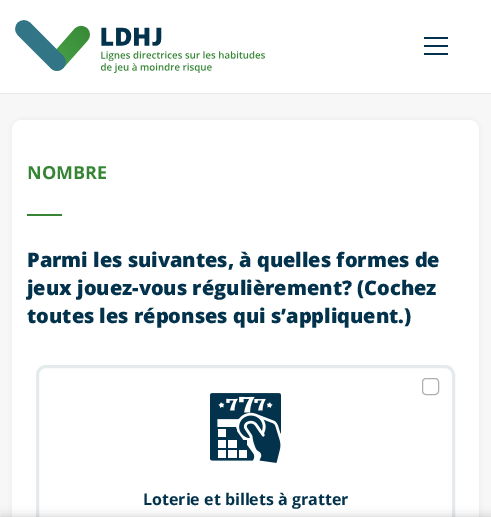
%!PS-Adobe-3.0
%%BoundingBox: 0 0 491 517
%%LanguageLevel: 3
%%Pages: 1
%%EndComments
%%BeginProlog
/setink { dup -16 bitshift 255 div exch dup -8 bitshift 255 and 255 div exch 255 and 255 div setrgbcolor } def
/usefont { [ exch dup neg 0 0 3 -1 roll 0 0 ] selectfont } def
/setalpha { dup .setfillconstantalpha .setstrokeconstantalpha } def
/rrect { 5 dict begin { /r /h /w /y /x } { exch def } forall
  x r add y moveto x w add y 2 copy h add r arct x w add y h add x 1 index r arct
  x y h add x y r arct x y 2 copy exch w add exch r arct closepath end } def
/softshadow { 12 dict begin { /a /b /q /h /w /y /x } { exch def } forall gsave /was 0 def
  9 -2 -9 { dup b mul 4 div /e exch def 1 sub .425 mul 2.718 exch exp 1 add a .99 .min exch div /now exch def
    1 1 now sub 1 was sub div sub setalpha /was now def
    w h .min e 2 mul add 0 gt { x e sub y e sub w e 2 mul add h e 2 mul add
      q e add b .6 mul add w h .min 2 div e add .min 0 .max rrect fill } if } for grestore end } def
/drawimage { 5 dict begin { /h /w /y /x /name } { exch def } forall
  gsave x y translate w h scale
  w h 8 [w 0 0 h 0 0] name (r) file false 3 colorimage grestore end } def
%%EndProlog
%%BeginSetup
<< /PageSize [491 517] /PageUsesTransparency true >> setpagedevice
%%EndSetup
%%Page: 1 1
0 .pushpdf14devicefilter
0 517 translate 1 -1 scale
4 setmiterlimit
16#F7F7F8 setink
0 0 491 517 rectfill
16#FFFFFF setink
0 0 491 93 rectfill
16#E5EAED setink
0 93 491 1 rectfill
(img1.raw) 15 20 250 53 drawimage
[
    [424 37 24 2 16#03334C]
    [424 45 24 2 16#03334C]
    [424 53 24 2 16#03334C]
] { aload pop setink rectfill } forall
16#949494 setink
12 120 467 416 10 3 0.15 softshadow
16#FFFFFF setink
12 120 467 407 10 rrect fill
/OpenSans-Bold 18 usefont
16#358534 setink
27 179 moveto (NOMBRE) show
27 214 35 2 rectfill
/OpenSans-ExtraBold 20 usefont
16#03334C setink
[
    [(Parmi les suivantes, à quelles formes de) 27 267]
    [(jeux jouez-vous régulièrement? \(Cochez) 27 295]
    [(toutes les réponses qui s’appliquent.\)) 27 323]
] { aload pop moveto show } forall
16#E5EAED setink
3 setlinewidth
37.5 366.5 416 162 8.5 rrect stroke
16#AFAFAF setink
1 setlinewidth
422.5 378.5 16 16 3.5 rrect stroke
(img2.raw) 210 393 71 70 drawimage
/OpenSans-Bold 16 usefont
16#03334C setink
143 505 moveto (Loterie et billets à gratter) show
16#000000 setink
0 517 491 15 0 5 0.2 softshadow
.poppdf14devicefilter showpage
%%EOF
